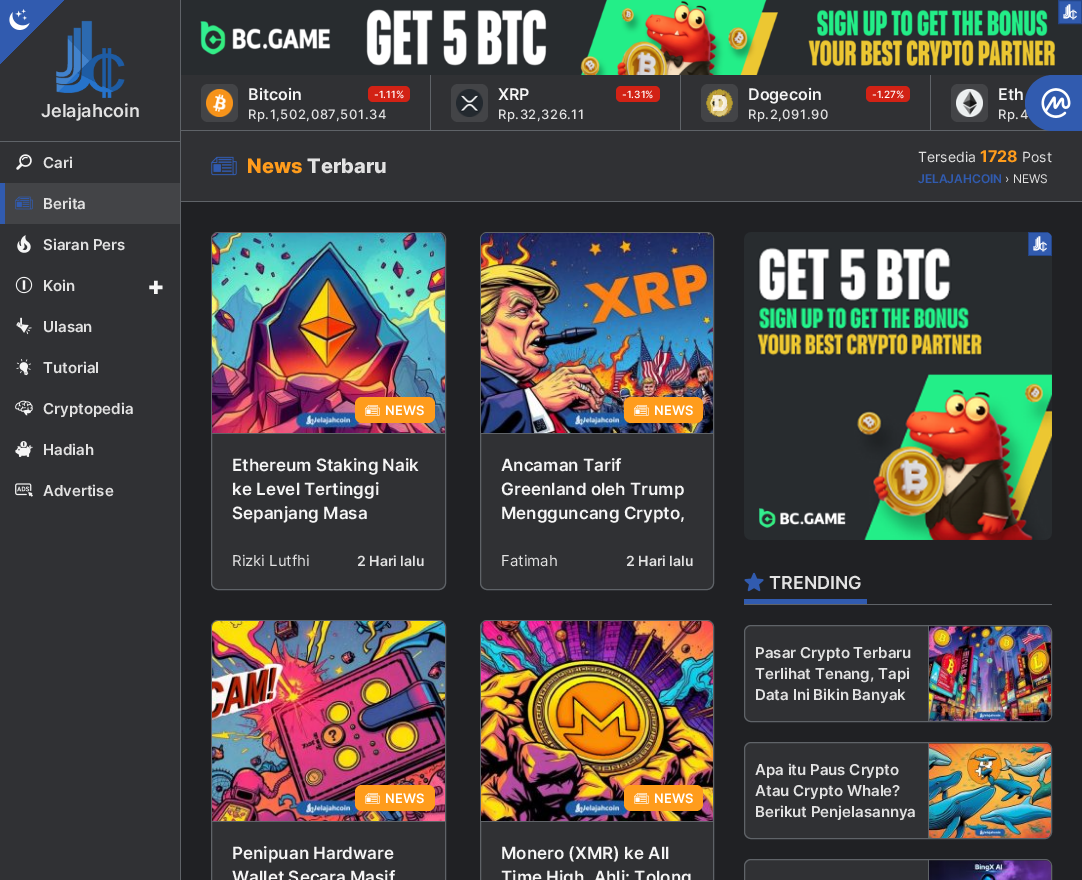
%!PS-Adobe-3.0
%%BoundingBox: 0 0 1082 880
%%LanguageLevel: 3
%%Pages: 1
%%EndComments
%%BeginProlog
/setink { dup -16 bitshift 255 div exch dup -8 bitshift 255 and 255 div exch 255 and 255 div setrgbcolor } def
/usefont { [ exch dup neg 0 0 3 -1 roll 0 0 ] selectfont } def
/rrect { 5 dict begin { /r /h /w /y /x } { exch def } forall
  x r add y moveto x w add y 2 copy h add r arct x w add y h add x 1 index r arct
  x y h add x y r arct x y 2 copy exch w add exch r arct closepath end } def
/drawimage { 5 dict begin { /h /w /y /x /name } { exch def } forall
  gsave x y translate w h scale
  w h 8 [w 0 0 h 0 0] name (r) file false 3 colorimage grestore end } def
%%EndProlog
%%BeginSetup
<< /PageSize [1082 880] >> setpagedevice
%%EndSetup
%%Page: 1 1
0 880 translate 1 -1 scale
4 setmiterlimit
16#202124 setink
0 0 1082 880 rectfill
16#303134 setink
0 0 180 880 rectfill
16#5F6368 setink
180 0 1 880 rectfill
(img2.raw) 56 20 69 78 drawimage
gsave 0 0 moveto 65 0 lineto 65 64 lineto 0 64 lineto closepath clip newpath
<< /ShadingType 2 /ColorSpace /DeviceRGB /Coords [0 0 65 65] /Extend [true true] /Function << /FunctionType 3 /Domain [0 1] /Functions [<< /FunctionType 2 /Domain [0 1] /C0 [0.192 0.357 0.686] /C1 [0.192 0.357 0.686] /N 1 >> << /FunctionType 2 /Domain [0 1] /C0 [0.188 0.192 0.204] /C1 [0.188 0.192 0.204] /N 1 >>] /Bounds [0.5] /Encode [0 1 0 1] >> >> shfill grestore
(img1.raw) 9 9 21 21 drawimage
0 141 180 1 rectfill
/Inter-SemiBold 18 usefont
16#E2E2E2 setink
41 117 moveto (Jelajahcoin) show
(img3.raw) 16 154 16 16 drawimage
/Inter-SemiBold 15 usefont
43 168 moveto (Cari) show
16#434447 setink
5 183 175 41 rectfill
16#315BAF setink
0 183 5 41 rectfill
(img4.raw) 15 196 18 14 drawimage
16#E2E2E2 setink
43 209 moveto (Berita) show
(img5.raw) 17 235 14 18 drawimage
43 250 moveto (Siaran Pers) show
(img6.raw) 15 276 18 18 drawimage
43 291 moveto (Koin) show
/Inter-ExtraBold 26 usefont
16#F5F5F5 setink
147 295 moveto (+) show
(img7.raw) 16 317 16 18 drawimage
/Inter-SemiBold 15 usefont
16#E2E2E2 setink
43 332 moveto (Ulasan) show
(img8.raw) 16 359 15 17 drawimage
43 373 moveto (Tutorial) show
(img9.raw) 15 400 18 16 drawimage
43 414 moveto (Cryptopedia) show
(img10.raw) 15 441 18 16 drawimage
43 455 moveto (Hadiah) show
(img11.raw) 15 483 18 14 drawimage
43 496 moveto (Advertise) show
(img12.raw) 181 0 901 75 drawimage
16#315BAF setink
1058.5 0.5 moveto 1081.5 0.5 lineto 1081.5 23.5 lineto 1058.5 23.5 lineto closepath gsave fill grestore
16#254688 setink
stroke
(img13.raw) 1063 4 14 16 drawimage
[
    [181 75 872 55 16#303134]
    [181 130 872 1 16#5F6368]
    [430 75 1 55 16#5F6368]
] { aload pop setink rectfill } forall
16#434447 setink
201 84 37 38 7 rrect fill
(img14.raw) 206 89 27 28 drawimage
/Inter-SemiBold 16 usefont
16#F5F5F5 setink
248 100 moveto (Bitcoin) show
16#D22215 setink
368 86 42 16 5 rrect fill
/Inter-Medium 10 usefont
16#FFFFFF setink
374 98 moveto (-1.11%) show
/Inter-Medium 13 usefont
16#E2E2E2 setink
248 119 moveto 0.5 0 (Rp.1,502,087,501.34) ashow
16#5F6368 setink
680 75 1 55 rectfill
16#434447 setink
451 84 37 38 7 rrect fill
(img15.raw) 456 89 27 28 drawimage
/Inter-SemiBold 16 usefont
16#F5F5F5 setink
498 100 moveto (XRP) show
16#D22215 setink
616 86 44 16 5 rrect fill
/Inter-Medium 10 usefont
16#FFFFFF setink
622 98 moveto (-1.31%) show
/Inter-Medium 13 usefont
16#E2E2E2 setink
498 119 moveto 0.5 0 (Rp.32,326.11) ashow
16#5F6368 setink
930 75 1 55 rectfill
16#434447 setink
701 84 37 38 7 rrect fill
(img16.raw) 706 89 27 28 drawimage
/Inter-SemiBold 16 usefont
16#F5F5F5 setink
748 100 moveto (Dogecoin) show
16#D22215 setink
866 86 44 16 5 rrect fill
/Inter-Medium 10 usefont
16#FFFFFF setink
872 98 moveto (-1.27%) show
/Inter-Medium 13 usefont
16#E2E2E2 setink
748 119 moveto 0.5 0 (Rp.2,091.90) ashow
16#434447 setink
951 84 37 38 7 rrect fill
(img17.raw) 956 89 27 28 drawimage
/Inter-SemiBold 16 usefont
16#F5F5F5 setink
998 100 moveto (Eth) show
/Inter-Medium 13 usefont
16#E2E2E2 setink
998 119 moveto 0.5 0 (Rp.4) ashow
16#315BAF setink
1053 75 moveto 1082 75 lineto 1082 131 lineto 1053 131 lineto 1037.5 131 1025 118.5 1025 103 curveto 1025 87.5 1037.5 75 1053 75 curveto closepath fill
(img18.raw) 1041 88 30 30 drawimage
16#303134 setink
181 131 901 70 rectfill
16#5F6368 setink
181 201 901 1 rectfill
(img19.raw) 211 156 26 20 drawimage
/Inter-ExtraBold 20 usefont
16#FF9C1C setink
247 173 moveto (News) show
16#E2E2E2 setink
307 173 moveto (Terbaru) show
/Inter-Regular 14 usefont
918 162 moveto (Tersedia) show
/Inter-Bold 16 usefont
16#FF9C1C setink
980 162 moveto (1728) show
/Inter-Regular 14 usefont
16#E2E2E2 setink
1022 162 moveto (Post) show
/Inter-SemiBold 12 usefont
16#315BAF setink
918 183 moveto (JELAJAHCOIN) show
/Inter-Regular 12 usefont
16#E2E2E2 setink
1005 183 moveto (› NEWS) show
16#303134 setink
211.5 232.5 234 357 6.5 rrect gsave fill grestore
16#5F6368 setink
stroke
212 433 233 1 rectfill
(img20.raw) 212 233 233 200 drawimage
16#FF9C1C setink
355 397 80 26 7 rrect fill
(img21.raw) 365 405 15 11 drawimage
/Inter-SemiBold 13 usefont
16#FFFFFF setink
385 415 moveto (NEWS) show
/Inter-SemiBold 17 usefont
16#F5F5F5 setink
[
    [(Ethereum Staking Naik) 232 471]
    [(ke Level Tertinggi) 232 495]
    [(Sepanjang Masa) 232 519]
] { aload pop moveto show } forall
/Inter-Regular 15 usefont
16#E2E2E2 setink
232 566 moveto (Rizki Lutfhi) show
/Inter-SemiBold 14 usefont
357 566 moveto (2 Hari lalu) show
16#303134 setink
480.5 232.5 233 357 6.5 rrect gsave fill grestore
16#5F6368 setink
stroke
481 433 232 1 rectfill
(img22.raw) 481 233 232 200 drawimage
16#FF9C1C setink
624 397 79 26 7 rrect fill
(img21.raw) 634 405 15 11 drawimage
/Inter-SemiBold 13 usefont
16#FFFFFF setink
654 415 moveto (NEWS) show
/Inter-SemiBold 17 usefont
16#F5F5F5 setink
[
    [(Ancaman Tarif) 501 471]
    [(Greenland oleh Trump) 501 495]
    [(Mengguncang Crypto,) 501 519]
] { aload pop moveto show } forall
/Inter-Regular 15 usefont
16#E2E2E2 setink
501 566 moveto (Fatimah) show
/Inter-SemiBold 14 usefont
626 566 moveto (2 Hari lalu) show
16#303134 setink
211.5 620.5 234 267 6.5 rrect gsave fill grestore
16#5F6368 setink
stroke
212 821 233 1 rectfill
(img23.raw) 212 621 233 200 drawimage
16#FF9C1C setink
355 785 80 26 7 rrect fill
(img21.raw) 365 793 15 11 drawimage
/Inter-SemiBold 13 usefont
16#FFFFFF setink
385 803 moveto (NEWS) show
/Inter-SemiBold 17 usefont
16#F5F5F5 setink
232 859 moveto (Penipuan Hardware) show
232 883 moveto (Wallet Secara Masif) show
16#303134 setink
480.5 620.5 233 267 6.5 rrect gsave fill grestore
16#5F6368 setink
stroke
481 821 232 1 rectfill
(img24.raw) 481 621 232 200 drawimage
16#FF9C1C setink
624 785 79 26 7 rrect fill
(img21.raw) 634 793 15 11 drawimage
/Inter-SemiBold 13 usefont
16#FFFFFF setink
654 803 moveto (NEWS) show
/Inter-SemiBold 17 usefont
16#F5F5F5 setink
501 859 moveto (Monero \(XMR\) ke All) show
501 883 moveto (Time High, Ahli: Tolong) show
(img25.raw) 744 232 308 308 drawimage
16#315BAF setink
1028 232 moveto 1045 232 lineto 1049 232 1052 235 1052 239 curveto 1052 256 lineto 1028 256 lineto closepath fill
16#254688 setink
1028 232 moveto 1028 256 lineto 1052 256 lineto 1052 239 lineto 1052 237.5 1051.5 236.5 1051 235.5 curveto 1051 255 lineto 1029 255 lineto 1029 233 lineto 1048.5 233 lineto 1047.5 232.5 1046.5 232 1045 232 curveto closepath fill
(img13.raw) 1033 236 14 16 drawimage
16#5F6368 setink
744 604 308 1 rectfill
16#315BAF setink
744 599 123 5 rectfill
(img26.raw) 744 572 20 20 drawimage
/Inter-SemiBold 18 usefont
16#E2E2E2 setink
769 589 moveto (TRENDING) show
16#303134 setink
744.5 625.5 307 96 6.5 rrect gsave fill grestore
16#5F6368 setink
stroke
928 626 1 95 rectfill
/Inter-SemiBold 15 usefont
16#E2E2E2 setink
[
    [(Pasar Crypto Terbaru) 755 658]
    [(Terlihat Tenang, Tapi) 755 679]
    [(Data Ini Bikin Banyak) 755 700]
] { aload pop moveto show } forall
(img27.raw) 929 626 122 95 drawimage
16#303134 setink
744.5 742.5 307 96 6.5 rrect gsave fill grestore
16#5F6368 setink
stroke
928 743 1 95 rectfill
16#E2E2E2 setink
[
    [(Apa itu Paus Crypto) 755 775]
    [(Atau Crypto Whale?) 755 796]
    [(Berikut Penjelasannya) 755 817]
] { aload pop moveto show } forall
(img28.raw) 929 743 122 95 drawimage
16#303134 setink
744.5 859.5 307 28 6.5 rrect gsave fill grestore
16#5F6368 setink
stroke
928 860 1 20 rectfill
(img29.raw) 929 860 122 20 drawimage
showpage
%%EOF
